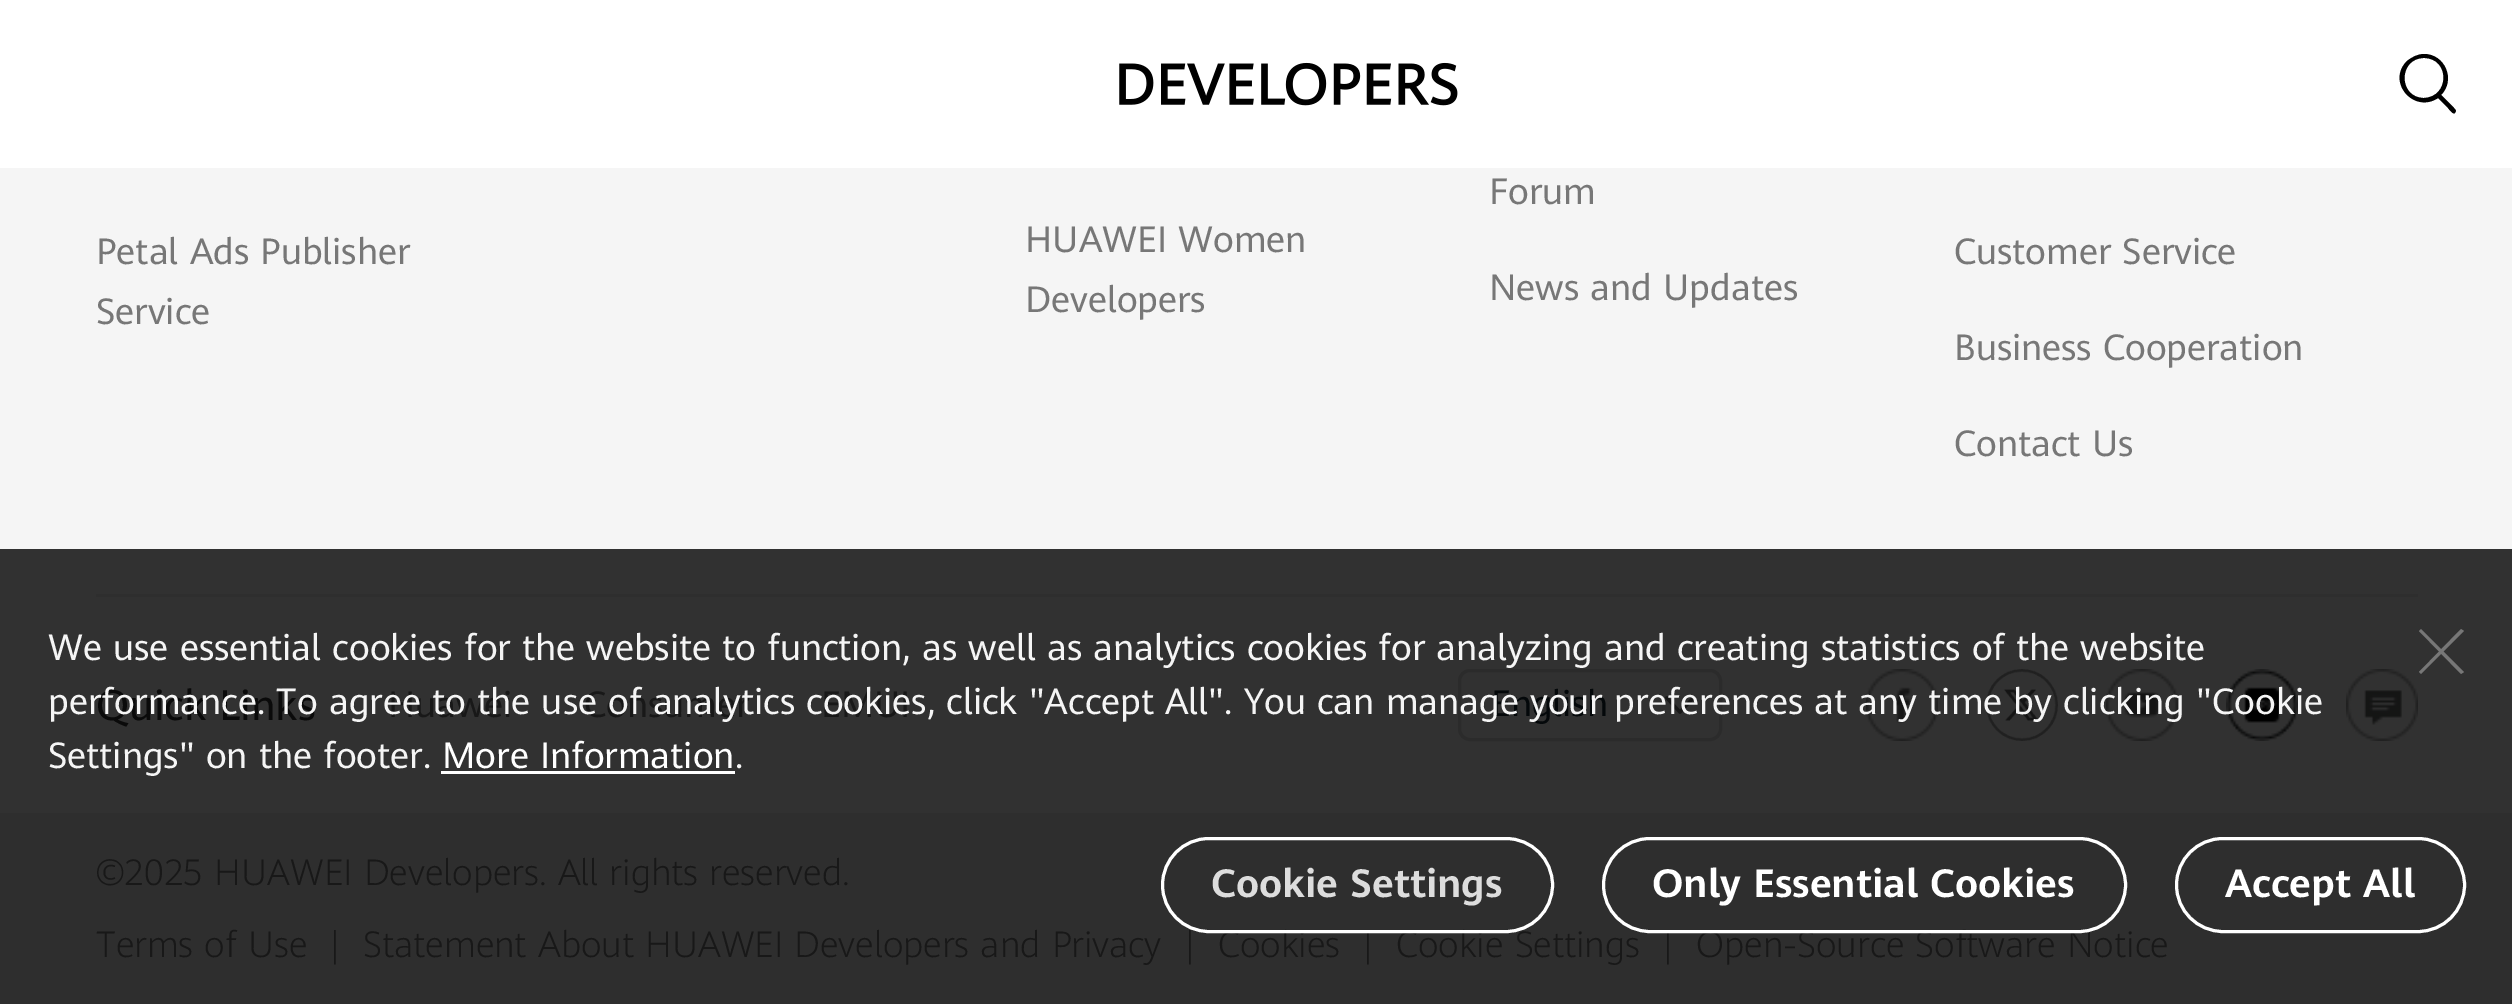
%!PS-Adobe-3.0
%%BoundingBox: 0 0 2512 1004
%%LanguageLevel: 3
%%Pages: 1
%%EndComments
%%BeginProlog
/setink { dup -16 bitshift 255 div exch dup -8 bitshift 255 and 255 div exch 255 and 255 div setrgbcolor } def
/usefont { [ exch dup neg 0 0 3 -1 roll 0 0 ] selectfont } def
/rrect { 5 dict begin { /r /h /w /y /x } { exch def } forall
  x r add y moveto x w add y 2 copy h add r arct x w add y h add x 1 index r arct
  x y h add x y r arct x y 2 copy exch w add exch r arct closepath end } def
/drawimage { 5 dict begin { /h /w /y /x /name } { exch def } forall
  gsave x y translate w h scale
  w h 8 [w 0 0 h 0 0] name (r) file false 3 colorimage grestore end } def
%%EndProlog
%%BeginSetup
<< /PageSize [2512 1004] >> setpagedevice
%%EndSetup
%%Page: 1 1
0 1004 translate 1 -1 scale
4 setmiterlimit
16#F5F5F5 setink
0 0 2512 1004 rectfill
16#313131 setink
0 549 2512 264 rectfill
16#2E2E2E setink
96 594 2322 3 rectfill
/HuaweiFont-Regular 36 usefont
16#777777 setink
[
    [(Petal Ads Publisher) 96 264]
    [(Service) 96 324]
    [(HUAWEI Women) 1025 252]
    [(Developers) 1025 312]
    [(Forum) 1489 204]
    [(News and Updates) 1489 300]
    [(Customer Service) 1954 264]
    [(Business Cooperation) 1954 360]
    [(Contact Us) 1954 456]
] { aload pop moveto show } forall
/HuaweiFont-Regular 42 usefont
16#0A0A0A setink
96 720 moveto (Quick Links) show
/HuaweiFont-Regular 36 usefont
16#181818 setink
[
    [(Huawei) 388 717]
    [(Consumer) 584 717]
    [(EMUI) 821 717]
] { aload pop moveto show } forall
16#2B2B2B setink
3 setlinewidth
1459.5 670.5 261 69 10.5 rrect stroke
16#04080A setink
1491 716 moveto (English) show
(img1.raw) 1665 696 30 18 drawimage
(img2.raw) 1866 669 72 72 drawimage
(img3.raw) 1986 669 72 72 drawimage
(img4.raw) 2106 669 72 72 drawimage
(img5.raw) 2226 669 72 72 drawimage
(img6.raw) 2346 669 72 72 drawimage
16#2E2E2E setink
0 813 2512 191 rectfill
/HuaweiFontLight-Light 36 usefont
16#181818 setink
[
    [(©2025 HUAWEI Developers. All rights reserved.) 96 885]
    [(Terms of Use) 96 957]
    [(|) 331 957]
    [(Statement About HUAWEI Developers and Privacy) 363 957]
    [(|) 1186 957]
    [(Cookies) 1218 957]
    [(|) 1364 957]
    [(Cookie Settings) 1396 957]
    [(|) 1664 957]
    [(Open-Source Software Notice) 1696 957]
] { aload pop moveto show } forall
16#FFFFFF setink
0 0 2512 168 rectfill
(img7.raw) 1119 62 339 44 drawimage
16#000000 setink
2424 54 moveto 2445 54 2456 80 2441 95 curveto 2443 97 2456 109 2456 111 curveto 2455 113 lineto 2453 115 2449 109 2448 108 curveto 2438 98 lineto 2414 114 2386 82 2407 61 curveto 2412 57 2418 54 2424 54 curveto closepath 2424 58 moveto 2398 58 2398 98 2424 98 curveto 2450 97 2450 58 2424 58 curveto closepath fill
/HuaweiFont-Regular 36 usefont
16#F5F5F5 setink
[
    [(We use essential cookies for the website to function, as well as analytics cookies for analyzing and creating statistics of the website) 48 660]
    [(performance. To agree to the use of analytics cookies, click "Accept All". You can manage your preferences at any time by clicking "Cookie) 48 714]
    [(Settings" on the footer.) 48 768]
] { aload pop moveto show } forall
16#FFFFFF setink
442 768 moveto (More Information) show
16#F5F5F5 setink
735 768 moveto (.) show
16#FFFFFF setink
441 771 294 3 rectfill
1162.5 838.5 390 93 46.5 rrect stroke
/HuaweiFont-Bold 39 usefont
16#DDDDDD setink
1211 897 moveto (Cookie Settings) show
16#FFFFFF setink
1603.5 838.5 522 93 46.5 rrect stroke
1652 897 moveto (Only Essential Cookies) show
2176.5 838.5 288 93 46.5 rrect stroke
2225 897 moveto (Accept All) show
16#777777 setink
2421 674 moveto 2464 631 lineto 2461 629 lineto 2419 672 lineto closepath fill
2461 674 moveto 2419 631 lineto 2421 629 lineto 2464 672 lineto closepath fill
showpage
%%EOF
